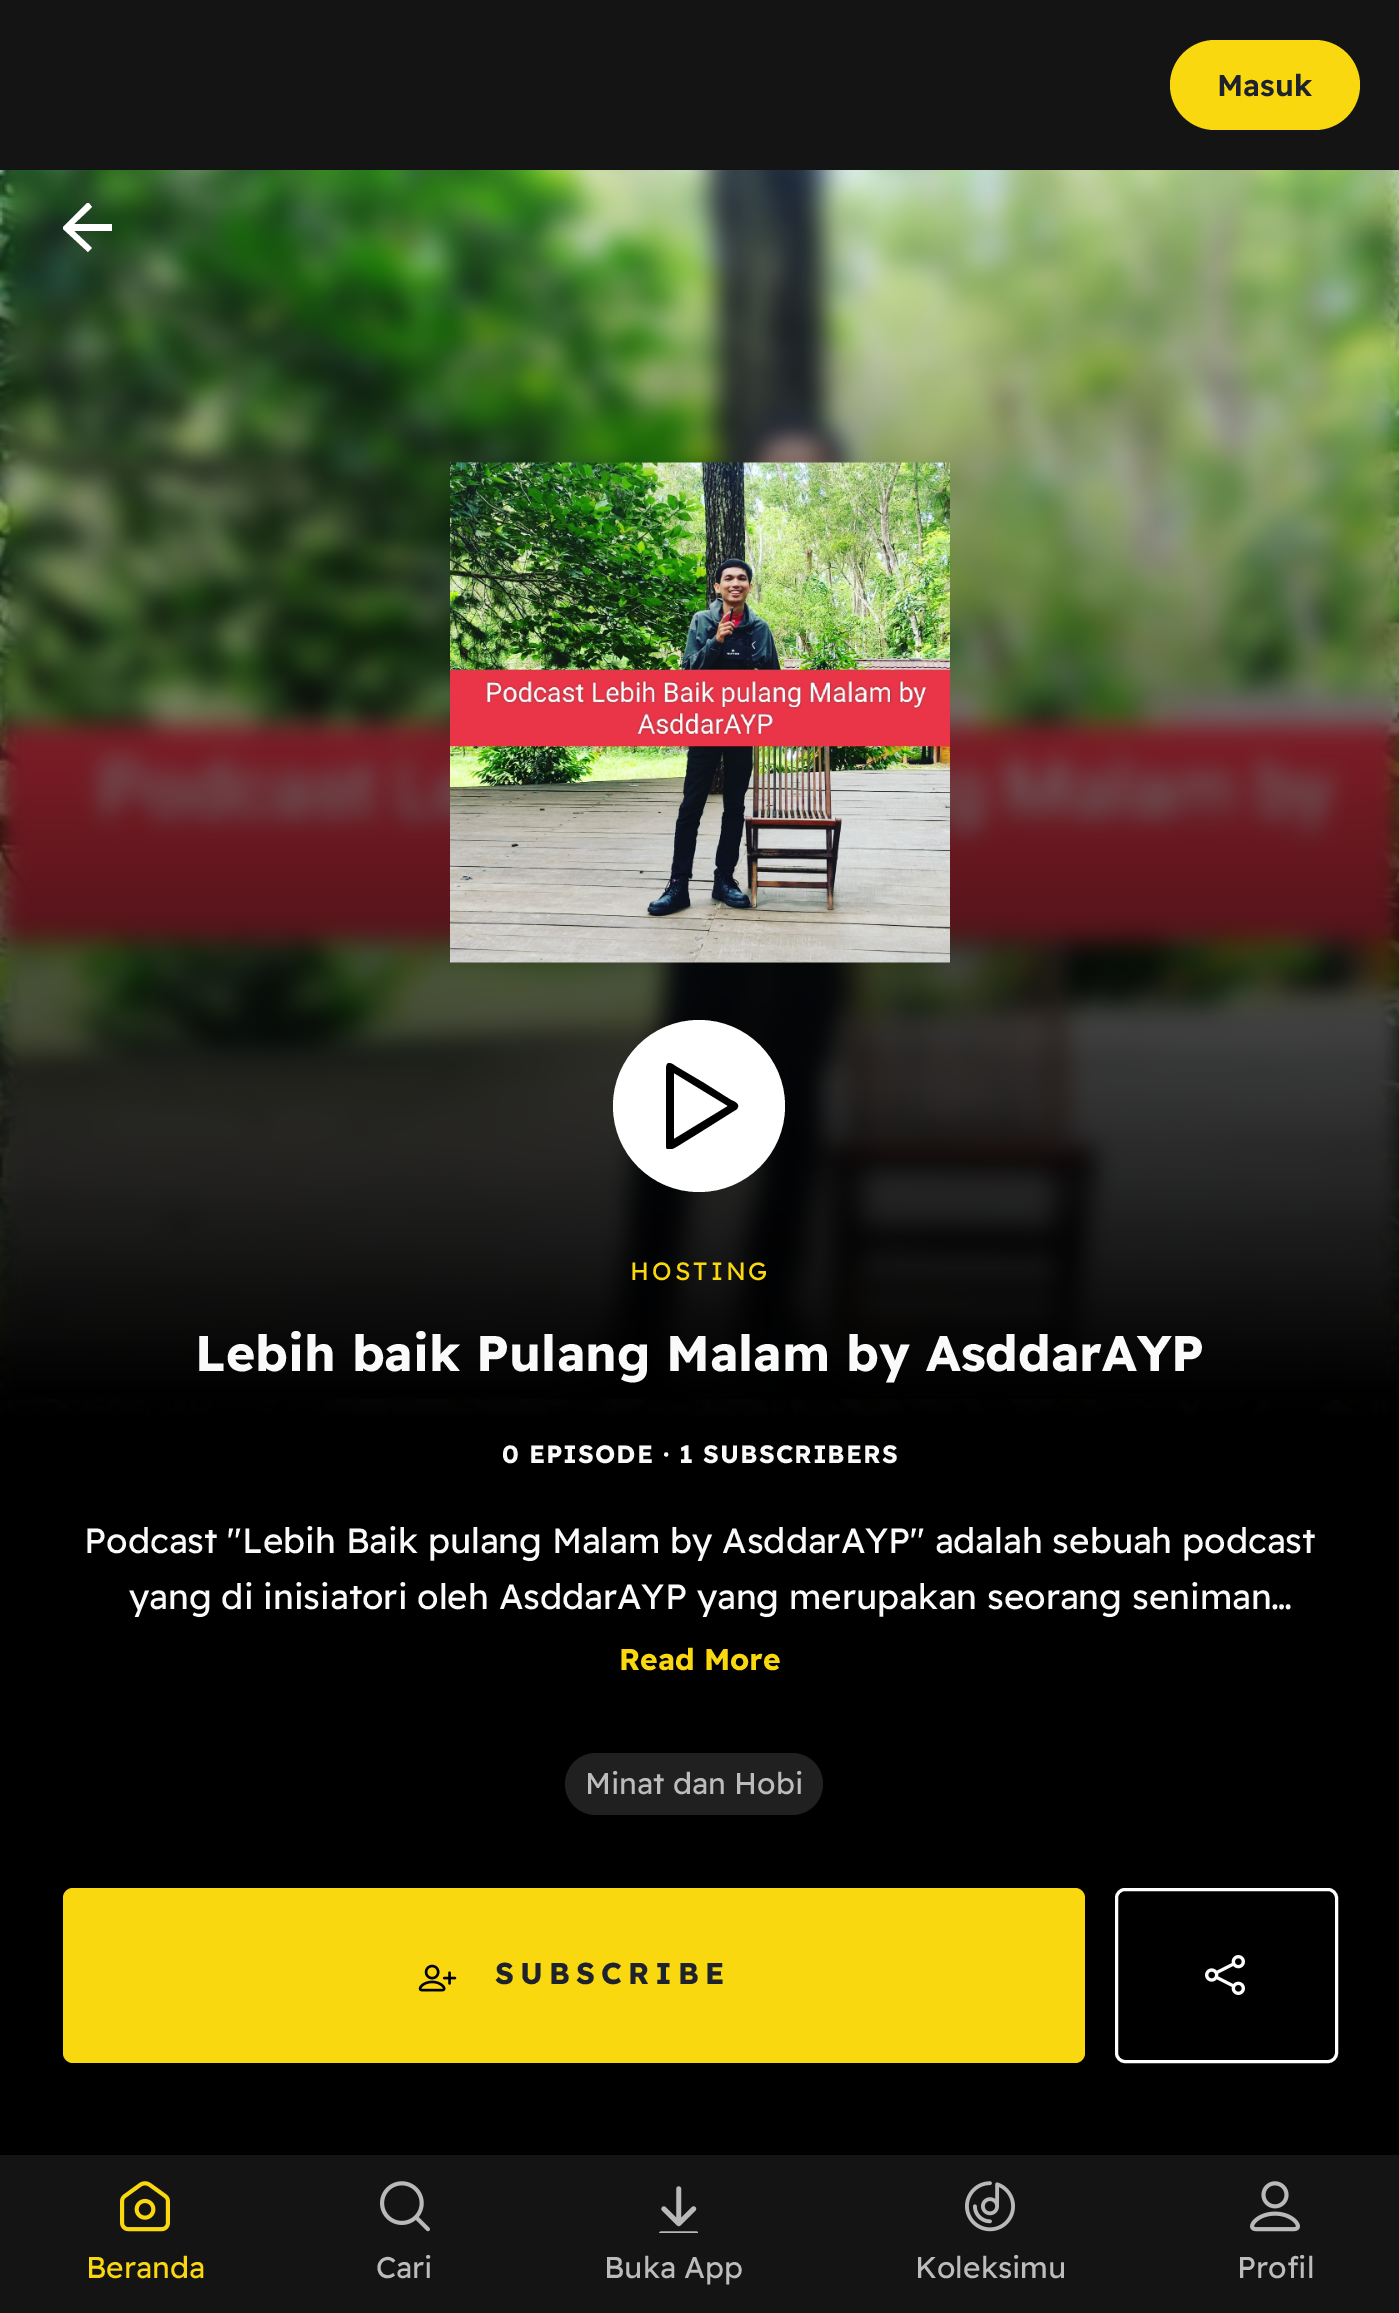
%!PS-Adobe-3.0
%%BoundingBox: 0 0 1399 2313
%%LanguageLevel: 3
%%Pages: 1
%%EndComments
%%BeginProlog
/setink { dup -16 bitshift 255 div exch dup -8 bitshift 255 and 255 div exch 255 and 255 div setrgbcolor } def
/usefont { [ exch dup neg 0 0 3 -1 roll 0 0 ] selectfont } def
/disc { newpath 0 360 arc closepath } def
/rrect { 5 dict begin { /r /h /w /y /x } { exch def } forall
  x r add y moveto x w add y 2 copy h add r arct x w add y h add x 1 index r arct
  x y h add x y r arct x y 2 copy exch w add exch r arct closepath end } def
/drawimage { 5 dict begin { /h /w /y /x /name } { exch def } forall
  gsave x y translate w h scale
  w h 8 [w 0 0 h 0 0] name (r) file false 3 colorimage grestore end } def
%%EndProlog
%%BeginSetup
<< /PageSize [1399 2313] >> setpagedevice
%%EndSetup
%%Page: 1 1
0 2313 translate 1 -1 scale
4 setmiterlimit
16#141414 setink
0 0 1399 2313 rectfill
16#FAD810 setink
1170 40 190 90 45 rrect fill
/ReadexPro-SemiBold 30 usefont
16#1E222C setink
1217 96 moveto 0.25 0 (Masuk) ashow
(img1.raw) 0 170 1399 1985 drawimage
(img2.raw) 0 170 1399 1229 drawimage
gsave
63 203 50 50 rectclip
16#FFFFFF setink
112 224 moveto 74 224 lineto 92 207 lineto 88 202 lineto 62 228 lineto 88 252 lineto 92 248 lineto 74 231 lineto 112 231 lineto closepath fill
grestore
(img3.raw) 450 462 500 501 drawimage
16#FFFFFF setink
699 1106 86 disc fill
gsave
656 1063 86 86 rectclip
16#000000 setink
728 1106 moveto 674 1073 lineto 674 1139 lineto closepath 704 1083 moveto 731 1100 lineto 733 1101 739 1103 738 1107 curveto 737 1109 lineto 694 1136 lineto 677 1146 668 1154 666 1147 curveto 666 1067 lineto 667 1064 lineto 670 1061 675 1066 677 1067 curveto closepath fill
grestore
/ReadexPro-Regular 25 usefont
16#FAD810 setink
630 1280 moveto 3 0 (HOSTING) ashow
/ReadexPro-Bold 50 usefont
16#FAFAFA setink
195 1371 moveto (Lebih baik Pulang Malam by AsddarAYP) show
/ReadexPro-Bold 25 usefont
502 1463 moveto 1 0 (0 EPISODE · 1 SUBSCRIBERS) ashow
/ReadexPro-Regular 35 usefont
84 1553 moveto (Podcast "Lebih Baik pulang Malam by AsddarAYP" adalah sebuah podcast) show
129 1609 moveto (yang di inisiatori oleh AsddarAYP yang merupakan seorang seniman…) show
/ReadexPro-Bold 30 usefont
16#FAD810 setink
619 1670 moveto (Read More) show
16#202020 setink
565 1753 258 62 31 rrect fill
/ReadexPro-Regular 30 usefont
16#BCBCBC setink
585 1794 moveto (Minat dan Hobi) show
16#FAD810 setink
63 1888 1022 175 10 rrect fill
(img4.raw) 418 1964 39 28 drawimage
/ReadexPro-Bold 30 usefont
16#1E222C setink
495 1984 moveto 6 0 (SUBSCRIBE) ashow
16#FFFFFF setink
3 setlinewidth
1116.5 1889.5 220 172 8.5 rrect stroke
(img5.raw) 1205 1955 40 40 drawimage
(img6.raw) 120 2181 50 51 drawimage
/ReadexPro-Regular 30 usefont
16#FAD810 setink
86 2278 moveto (Beranda) show
(img7.raw) 380 2181 50 51 drawimage
16#BCBCBC setink
376 2278 moveto (Cari) show
(img8.raw) 659 2186 39 47 drawimage
604 2278 moveto (Buka App) show
(img9.raw) 965 2181 50 51 drawimage
915 2278 moveto (Koleksimu) show
(img10.raw) 1250 2181 50 51 drawimage
1237 2278 moveto (Profil) show
showpage
%%EOF
